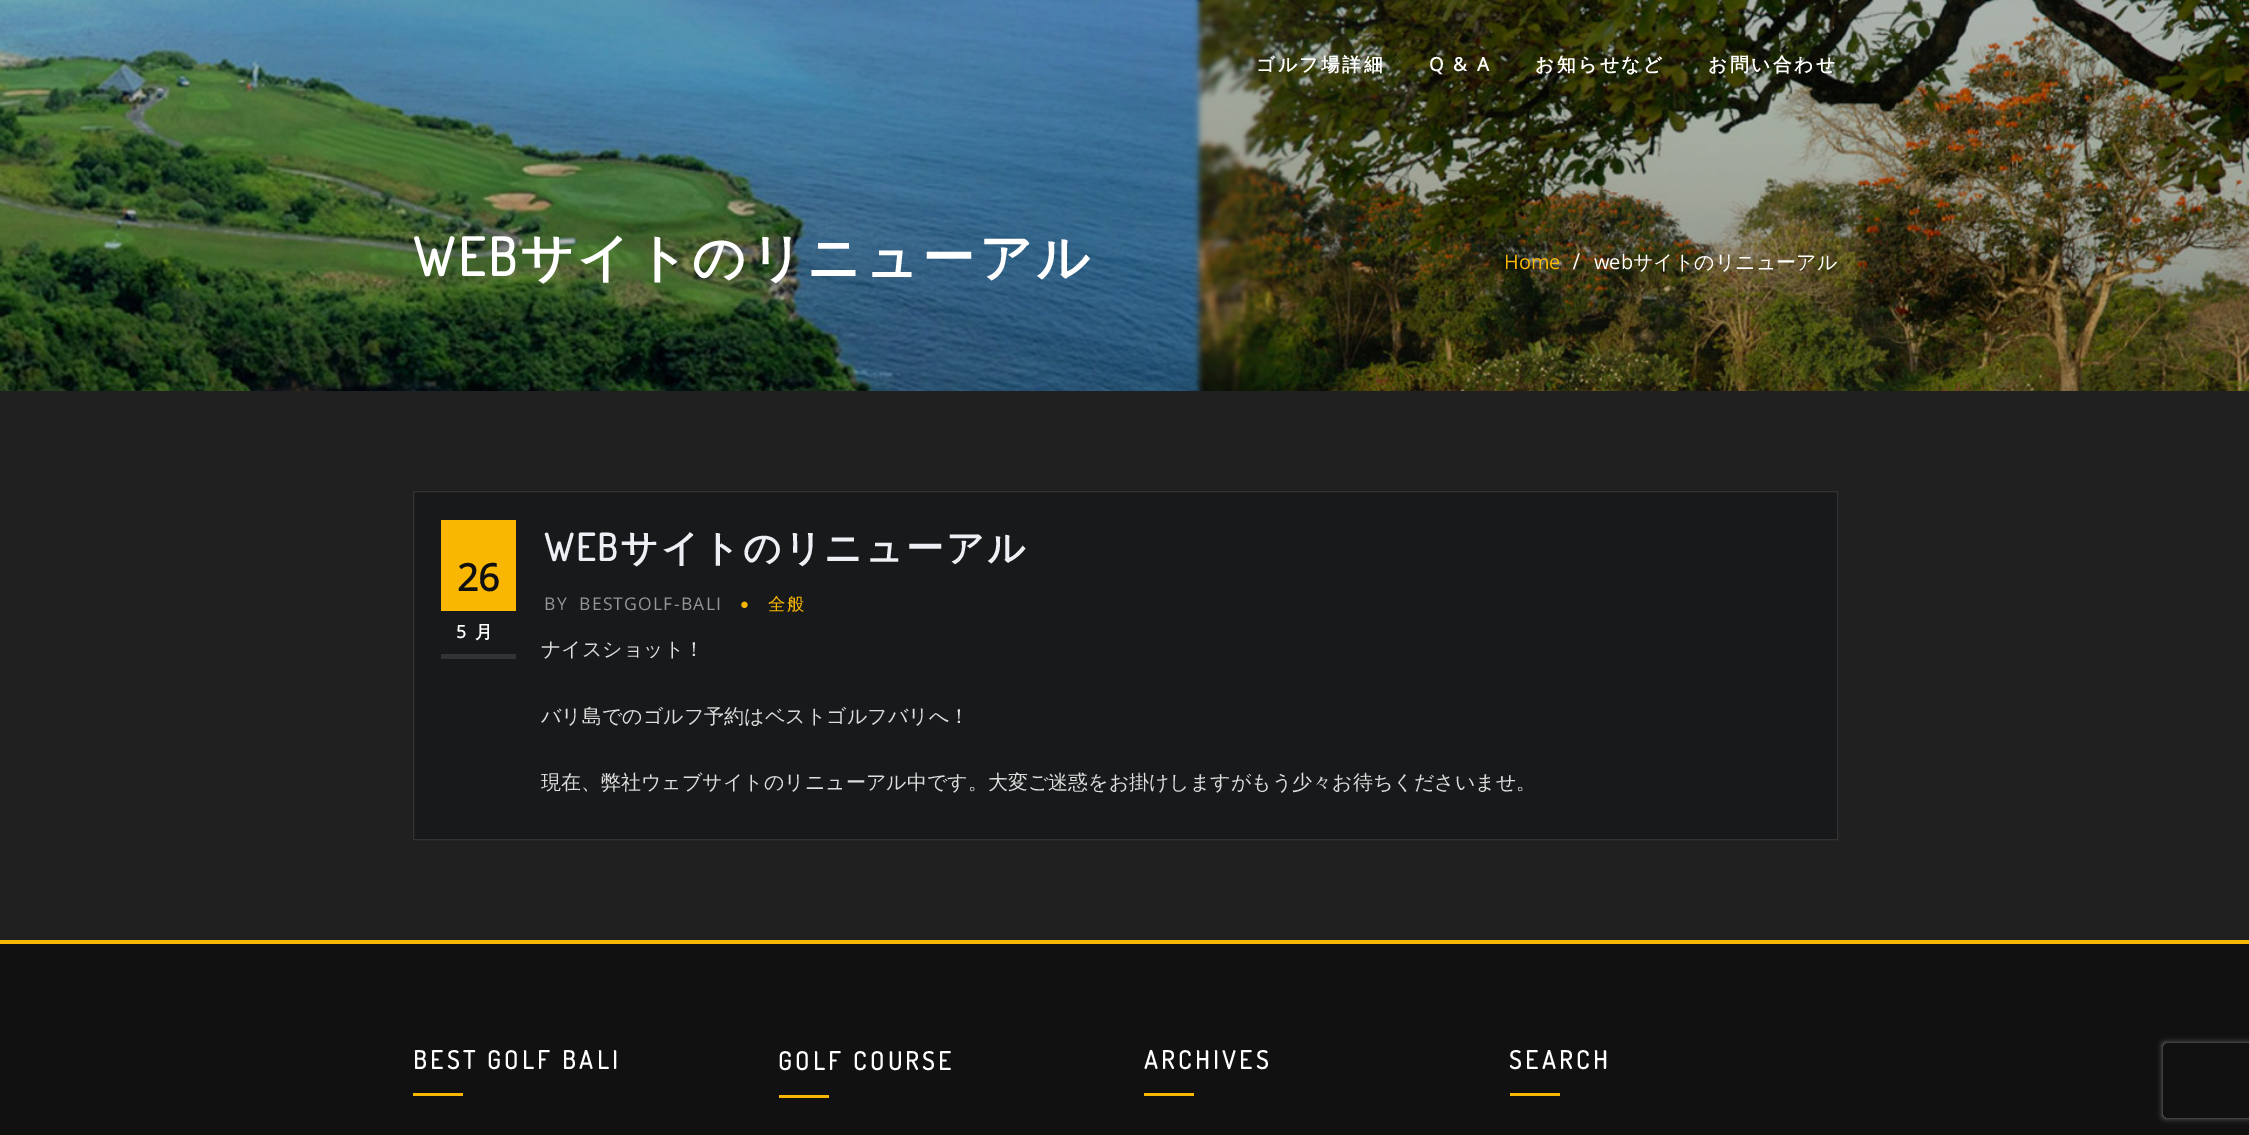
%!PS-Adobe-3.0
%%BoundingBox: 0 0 2249 1135
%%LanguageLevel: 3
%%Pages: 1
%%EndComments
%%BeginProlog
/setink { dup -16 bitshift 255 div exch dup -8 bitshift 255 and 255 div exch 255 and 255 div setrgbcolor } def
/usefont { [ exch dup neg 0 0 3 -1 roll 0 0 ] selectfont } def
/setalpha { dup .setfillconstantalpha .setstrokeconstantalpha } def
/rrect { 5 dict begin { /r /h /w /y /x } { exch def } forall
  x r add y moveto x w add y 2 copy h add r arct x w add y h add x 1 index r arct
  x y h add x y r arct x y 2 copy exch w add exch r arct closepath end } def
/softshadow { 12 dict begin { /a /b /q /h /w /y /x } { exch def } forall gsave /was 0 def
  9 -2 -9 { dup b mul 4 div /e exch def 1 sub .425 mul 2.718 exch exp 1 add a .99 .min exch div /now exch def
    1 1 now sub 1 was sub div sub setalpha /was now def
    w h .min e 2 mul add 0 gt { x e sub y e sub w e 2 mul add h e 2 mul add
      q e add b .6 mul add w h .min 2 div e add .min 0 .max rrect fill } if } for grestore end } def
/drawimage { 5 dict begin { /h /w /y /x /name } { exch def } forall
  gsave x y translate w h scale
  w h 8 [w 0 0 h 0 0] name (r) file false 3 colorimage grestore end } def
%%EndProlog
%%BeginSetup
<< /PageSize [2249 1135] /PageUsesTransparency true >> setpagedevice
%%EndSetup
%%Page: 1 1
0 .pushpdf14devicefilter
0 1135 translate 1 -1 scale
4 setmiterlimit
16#FFFFFF setink
0 0 2249 1135 rectfill
(img1.raw) 0 0 2249 391 drawimage
/WenQuanYiZenHei-Bold 18.75 usefont
1256 71 moveto 2.5 0 (ゴルフ場詳細) ashow
/OpenSans-Bold 18.75 usefont
1429 71 moveto 2.5 0 (Q & A) ashow
/WenQuanYiZenHei-Bold 18.75 usefont
1535 71 moveto 2.5 0 (お知らせなど) ashow
1708 71 moveto 2.5 0 (お問い合わせ) ashow
/Dosis-Bold 52.5 usefont
413 276 moveto 3.75 0 (WEB) ashow
/WenQuanYiZenHei-Bold 52.5 usefont
520 276 moveto 3.75 0 (サイトのリニューアル) ashow
/OpenSans-Regular 20 usefont
16#FAB702 setink
1504 269 moveto (Home) show
/LiberationSerif-Bold 24 usefont
16#FFFFFF setink
1573 269 moveto 2 0 (/) ashow
/OpenSans-Regular 20 usefont
1594 269 moveto (web) show
/WenQuanYiZenHei-Medium 20 usefont
1633 269 moveto (サイトのリニューアル) show
16#202020 setink
0 391 2249 549 rectfill
16#18191B setink
413.5 491.5 moveto 1837.5 491.5 lineto 1837.5 839.5 lineto 413.5 839.5 lineto closepath gsave fill grestore
16#333333 setink
stroke
16#FAB702 setink
441 520 75 91 rectfill
/OpenSans-Bold 37.5 usefont
16#111111 setink
457 591 moveto (26) show
16#333333 setink
441 654 75 5 rectfill
/OpenSans-Bold 17.5 usefont
16#FFFFFF setink
456 638 moveto 9 0 (5) ashow
/WenQuanYiZenHei-Bold 17.5 usefont
475 638 moveto 9 0 (月) ashow
/Dosis-Bold 37.5 usefont
16#ECEFF3 setink
544 561 moveto 2.5 0 (WEB) ashow
/WenQuanYiZenHei-Bold 37.5 usefont
620 561 moveto 2.5 0 (サイトのリニューアル) ashow
/OpenSans-Regular 17.5 usefont
16#959595 setink
544 610 moveto 1.25 0 (BY) ashow
579 610 moveto 1.25 0 (BESTGOLF-BALI) ashow
(img2.raw) 741 601 7 7 drawimage
/WenQuanYiZenHei-Medium 17.5 usefont
16#FAB702 setink
768 610 moveto 1.25 0 (全般) ashow
/WenQuanYiZenHei-Medium 20 usefont
16#DDDDDD setink
[
    [(ナイスショット！) 541 656]
    [(バリ島でのゴルフ予約はベストゴルフバリへ！) 541 723]
    [(現在、弊社ウェブサイトのリニューアル中です。大変ご迷惑をお掛けしますがもう少々お待ちくださいませ。) 541 789]
] { aload pop moveto show } forall
16#111111 setink
0 944 2249 191 rectfill
16#FAB702 setink
0 940 2249 4 rectfill
/Dosis-Bold 25 usefont
16#FFFFFF setink
413 1069 moveto 3.75 0 (BEST GOLF BALI) ashow
16#FAB702 setink
413 1093 50 3 rectfill
16#FFFFFF setink
778 1070 moveto 3.75 0 (GOLF COURSE) ashow
16#FAB702 setink
779 1095 50 3 rectfill
16#FFFFFF setink
1144 1069 moveto 3.75 0 (ARCHIVES) ashow
16#FAB702 setink
1144 1093 50 3 rectfill
16#FFFFFF setink
1509 1069 moveto 3.75 0 (SEARCH) ashow
16#FAB702 setink
1510 1093 50 3 rectfill
gsave
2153 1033 moveto 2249 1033 lineto 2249 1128 lineto 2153 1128 lineto closepath 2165.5 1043 moveto 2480.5 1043 lineto 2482 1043 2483 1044 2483 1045.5 curveto 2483 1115.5 lineto 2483 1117 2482 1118 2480.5 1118 curveto 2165.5 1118 lineto 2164 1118 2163 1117 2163 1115.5 curveto 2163 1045.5 lineto 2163 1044 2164 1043 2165.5 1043 curveto closepath eoclip newpath
16#808080 setink
2163 1043 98 75 2.5 3 1 softshadow
grestore
.poppdf14devicefilter showpage
%%EOF
